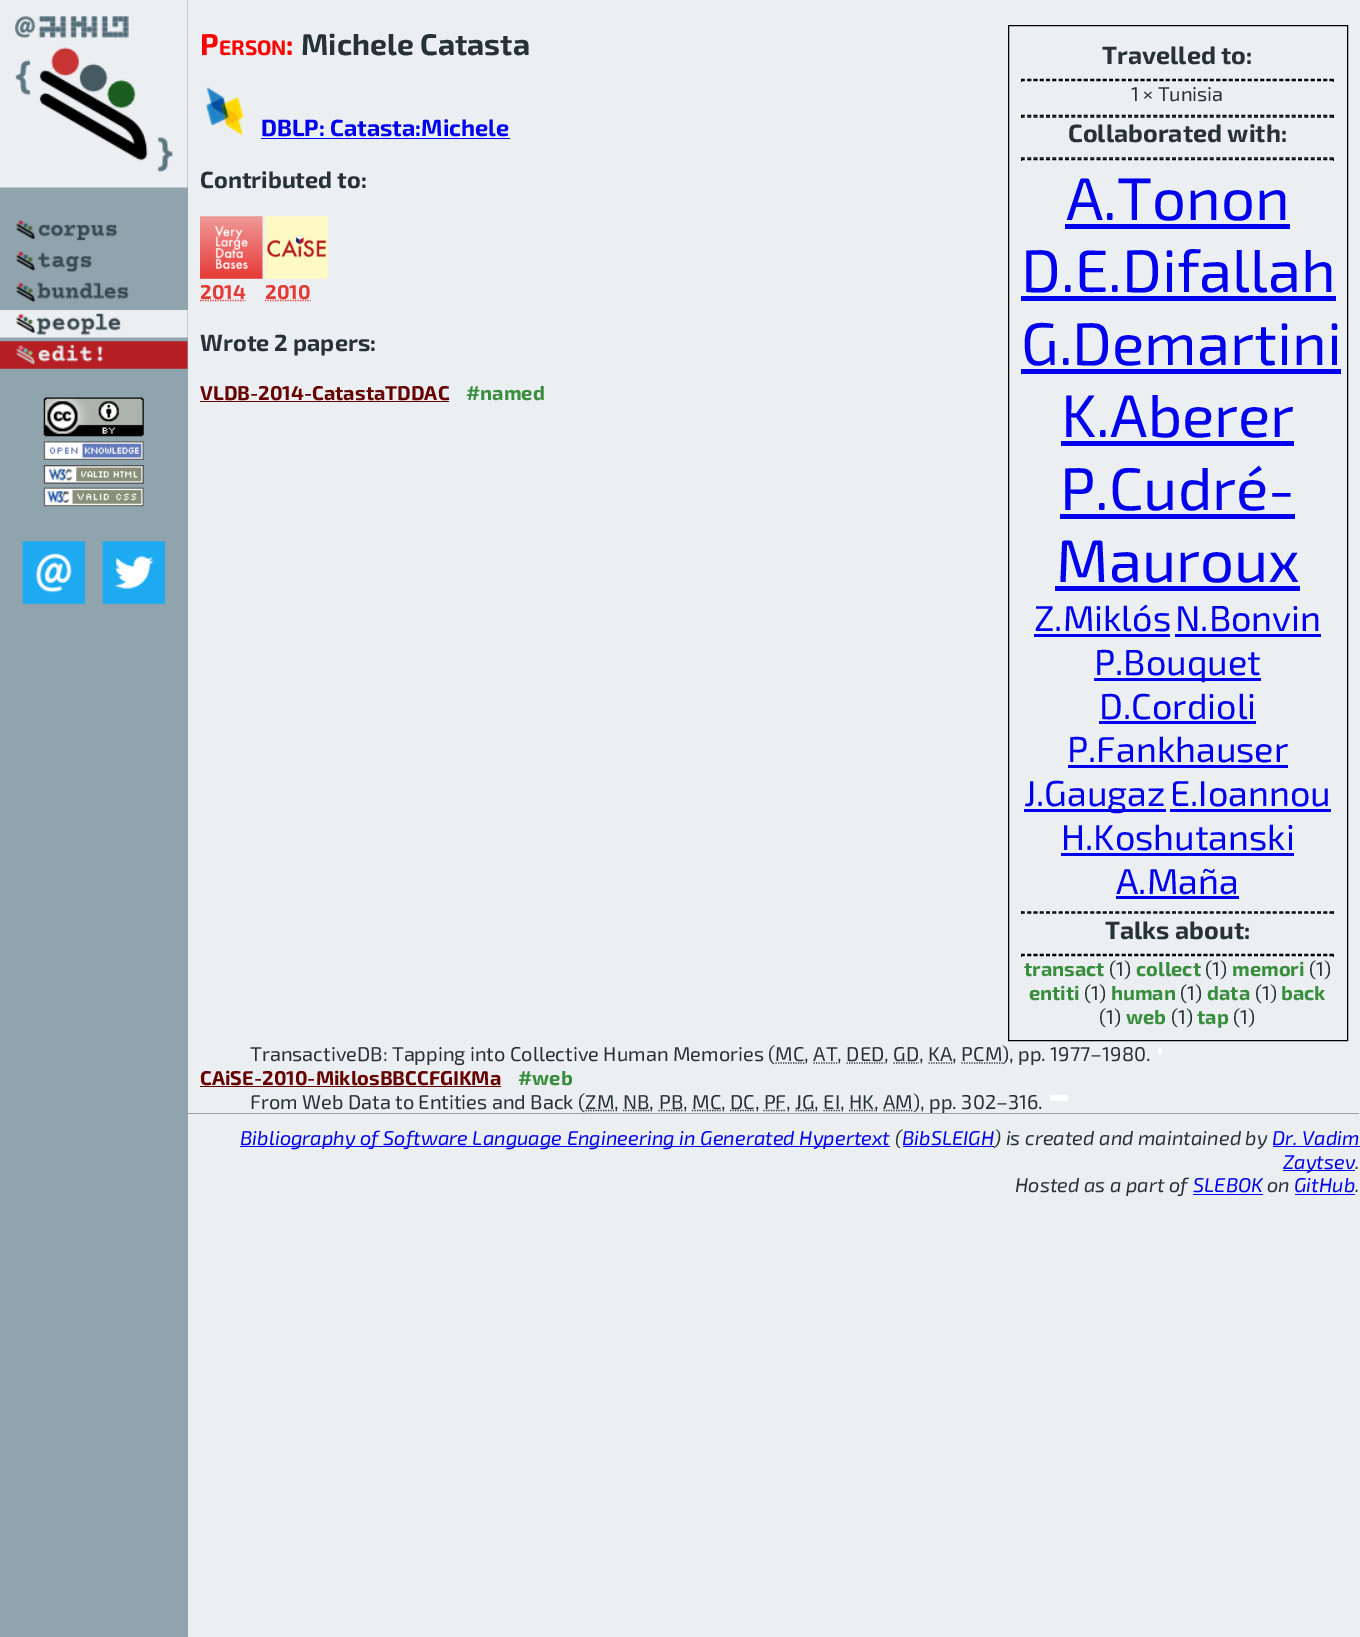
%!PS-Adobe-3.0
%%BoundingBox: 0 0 1360 1637
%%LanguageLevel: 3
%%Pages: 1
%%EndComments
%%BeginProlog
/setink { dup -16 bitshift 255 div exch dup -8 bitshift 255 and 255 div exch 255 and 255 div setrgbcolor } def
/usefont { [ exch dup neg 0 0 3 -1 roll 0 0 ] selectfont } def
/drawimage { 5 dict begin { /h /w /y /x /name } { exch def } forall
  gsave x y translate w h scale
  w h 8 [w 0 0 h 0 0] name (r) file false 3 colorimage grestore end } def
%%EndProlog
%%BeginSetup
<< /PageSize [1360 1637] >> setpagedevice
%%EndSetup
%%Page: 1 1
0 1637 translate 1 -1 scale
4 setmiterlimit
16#ECEFF1 setink
0 0 1360 1637 rectfill
16#90A4AE setink
0 0 188 1637 rectfill
(img1.raw) 0 0 188 188 drawimage
(img2.raw) 16 219 102 22 drawimage
(img3.raw) 16 251 76 22 drawimage
(img4.raw) 16 282 113 21 drawimage
(img5.raw) 0 310 188 28 drawimage
(img6.raw) 0 341 188 28 drawimage
(img7.raw) 43 397 101 40 drawimage
(img8.raw) 43 441 101 19 drawimage
(img9.raw) 43 465 101 19 drawimage
(img10.raw) 43 487 101 20 drawimage
(img11.raw) 22 541 63 63 drawimage
(img12.raw) 102 541 63 63 drawimage
/Exo2-Bold 30 usefont
16#FF0000 setink
200 55 moveto (P) show
/Exo2-Bold 21 usefont
219 55 moveto (ERSON) show
/Exo2-Bold 30 usefont
286 55 moveto (:) show
16#263238 setink
301 55 moveto (Michele Catasta) show
16#000000 setink
1008.5 25.5 339 1015 rectstroke
/Exo2-Bold 25 usefont
16#263238 setink
1102 64 moveto (Travelled to:) show
16#000000 setink
1.2 setlinewidth
[3.75 2.55] 0 setdash
1021 79.5 moveto 1334 79.5 lineto stroke
1333 79 1 3 rectfill
1021 80.5 moveto 1334 80.5 lineto stroke
1021 79 1 3 rectfill
/Exo2-Regular 20 usefont
16#263238 setink
1131 101 moveto (1 × Tunisia) show
16#000000 setink
1021 115.5 moveto 1334 115.5 lineto stroke
1333 115 1 3 rectfill
1021 117 moveto 1334 117 lineto stroke
1021 115 1 3 rectfill
/Exo2-Bold 25 usefont
16#263238 setink
1068 142 moveto (Collaborated with:) show
16#000000 setink
1021 158 moveto 1334 158 lineto stroke
1333 158 1 3 rectfill
1021 159.5 moveto 1334 159.5 lineto stroke
1021 158 1 3 rectfill
/Exo2-Regular 60 usefont
16#0000EE setink
1066 220 moveto (A.Tonon) show
1065 224 225 5 rectfill
1021 292 moveto (D.E.Difallah) show
1021 296 315 5 rectfill
1021 365 moveto (G.Demartini) show
1021 369 320 5 rectfill
1061 437 moveto (K.Aberer) show
1061 441 233 5 rectfill
1060 510 moveto (P.Cudré-) show
1060 514 235 5 rectfill
1056 582 moveto (Mauroux) show
1055 586 245 5 rectfill
/Exo2-Regular 36 usefont
1034 631 moveto (Z.Miklós) show
1034 634 136 3 rectfill
1175 631 moveto (N.Bonvin) show
1175 634 146 3 rectfill
1094 678 167 3 rectfill
1094 675 moveto (P.Bouquet) show
1099 719 moveto (D.Cordioli) show
1099 721 157 3 rectfill
1067 762 moveto (P.Fankhauser) show
1068 765 220 3 rectfill
1024 809 142 3 rectfill
1024 806 moveto (J.Gaugaz) show
1170 806 moveto (E.Ioannou) show
1170 809 161 3 rectfill
1061 850 moveto (H.Koshutanski) show
1061 853 233 3 rectfill
1116 894 moveto (A.Maña) show
1116 896 123 3 rectfill
16#000000 setink
1021 912 moveto 1334 912 lineto stroke
1333 911 1 3 rectfill
1021 913 moveto 1334 913 lineto stroke
1021 911 1 3 rectfill
/Exo2-Bold 25 usefont
16#263238 setink
1105 939 moveto (Talks about:) show
16#000000 setink
1021 954.5 moveto 1334 954.5 lineto stroke
1333 954 1 3 rectfill
1021 955.5 moveto 1334 955.5 lineto stroke
1021 954 1 3 rectfill
/Exo2-Bold 20 usefont
16#388E3C setink
1024 976 moveto (transact) show
/Exo2-Regular 20 usefont
16#263238 setink
1109 976 moveto (\(1\)) show
/Exo2-Bold 20 usefont
16#388E3C setink
1136 976 moveto (collect) show
/Exo2-Regular 20 usefont
16#263238 setink
1205 976 moveto (\(1\)) show
/Exo2-Bold 20 usefont
16#388E3C setink
1232 976 moveto (memori) show
/Exo2-Regular 20 usefont
16#263238 setink
1309 976 moveto (\(1\)) show
/Exo2-Bold 20 usefont
16#388E3C setink
1029 1000 moveto (entiti) show
/Exo2-Regular 20 usefont
16#263238 setink
1084 1000 moveto (\(1\)) show
/Exo2-Bold 20 usefont
16#388E3C setink
1111 1000 moveto (human) show
/Exo2-Regular 20 usefont
16#263238 setink
1180 1000 moveto (\(1\)) show
/Exo2-Bold 20 usefont
16#388E3C setink
1207 1000 moveto (data) show
/Exo2-Regular 20 usefont
16#263238 setink
1255 1000 moveto (\(1\)) show
/Exo2-Bold 20 usefont
16#388E3C setink
1281 1000 moveto (back) show
/Exo2-Regular 20 usefont
16#263238 setink
1099 1024 moveto (\(1\)) show
/Exo2-Bold 20 usefont
16#388E3C setink
1126 1024 moveto (web) show
/Exo2-Regular 20 usefont
16#263238 setink
1171 1024 moveto (\(1\)) show
/Exo2-Bold 20 usefont
16#388E3C setink
1197 1024 moveto (tap) show
/Exo2-Regular 20 usefont
16#263238 setink
1233 1024 moveto (\(1\)) show
(img13.raw) 206 87 38 49 drawimage
/Exo2-Bold 23.4 usefont
16#0000EE setink
261 136 moveto (DBLP: Catasta:Michele) show
261 138 249 1 rectfill
16#263238 setink
200 188 moveto (Contributed to:) show
(img14.raw) 200 216 63 63 drawimage
16#E53935 setink
[1.25 1.25] 0 setdash
200 300.5 moveto 245.5 300.5 lineto stroke
/Exo2-Bold 20 usefont
200 299 moveto (2014) show
(img15.raw) 265 216 63 63 drawimage
265 300.5 moveto 310.5 300.5 lineto stroke
265 299 moveto (2010) show
/Exo2-Bold 23.4 usefont
16#263238 setink
200 351 moveto (Wrote 2 papers:) show
/Exo2-Bold 20 usefont
16#660000 setink
200 400 moveto (VLDB-2014-CatastaTDDAC) show
200 401 249 1 rectfill
16#388E3C setink
466 400 moveto (#named) show
/Exo2-Regular 20 usefont
16#263238 setink
250 1061 moveto (TransactiveDB: Tapping into Collective Human Memories \(MC, AT, DED, GD, KA, PCM) show
961.5 1063 moveto 1002.5 1063 lineto stroke
1002 1061 moveto (\), pp. 1977–1980.) show
775.5 1063 moveto 804.5 1063 lineto 813.5 1063 moveto 837.5 1063 lineto stroke
846.5 1063 moveto 884.5 1063 lineto stroke
893.5 1063 moveto 919 1063 lineto 928.5 1063 moveto 952.5 1063 lineto stroke
16#FFFFFF setink
1158 1048 4 6 rectfill
/Exo2-Bold 20 usefont
16#660000 setink
200 1085 moveto (CAiSE-2010-MiklosBBCCFGIKMa) show
200 1086 301 1 rectfill
16#388E3C setink
518 1085 moveto (#web) show
/Exo2-Regular 20 usefont
16#263238 setink
250 1109 moveto (From Web Data to Entities and Back \(ZM,) show
623 1110.5 moveto 649.5 1110.5 lineto stroke
623 1109 moveto (NB,) show
658.5 1110.5 moveto 683 1110.5 lineto stroke
659 1109 moveto (PB,) show
692 1110.5 moveto 721 1110.5 lineto stroke
692 1109 moveto (MC,) show
730 1110.5 moveto 754.5 1110.5 lineto stroke
730 1109 moveto (DC, PF,) show
763.5 1110.5 moveto 786 1110.5 lineto 795.5 1110.5 moveto 814.5 1110.5 lineto stroke
795 1109 moveto (JG, EI, HK, AM\), pp. 302–316.) show
585.5 1110.5 moveto 614 1110.5 lineto stroke
823.5 1110.5 moveto 840 1110.5 lineto 849 1110.5 moveto 874.5 1110.5 lineto stroke
883.5 1110.5 moveto 913.5 1110.5 lineto stroke
[
    [1050 1095 18 6 16#FFFFFF]
    [188 1113 1172 1 16#9F9F9F]
    [1359 1113 1 3 16#EEEEEE]
    [188 1114 1172 1 16#EEEEEE]
    [240 1146 650 1 16#0000EE]
] { aload pop setink rectfill } forall
/Exo2-Italic 20 usefont
240 1145 moveto (Bibliography of Software Language Engineering in Generated Hypertext) show
16#263238 setink
895 1145 moveto (\() show
16#0000EE setink
902 1145 moveto (BibSLEIGH) show
903 1146 91 1 rectfill
16#263238 setink
994 1145 moveto (\) is created and maintained by) show
16#0000EE setink
1272 1145 moveto (Dr. Vadim) show
1273 1146 87 1 rectfill
1283 1170 72 1 rectfill
1283 1169 moveto (Zaytsev) show
16#263238 setink
1355 1169 moveto (.) show
1015 1192 moveto (Hosted as a part of) show
16#0000EE setink
1193 1194 70 1 rectfill
1193 1192 moveto (SLEBOK) show
16#263238 setink
1267 1192 moveto (on) show
16#0000EE setink
1294 1192 moveto (GitHub) show
16#263238 setink
1355 1192 moveto (.) show
16#0000EE setink
1295 1194 60 1 rectfill
showpage
%%EOF
